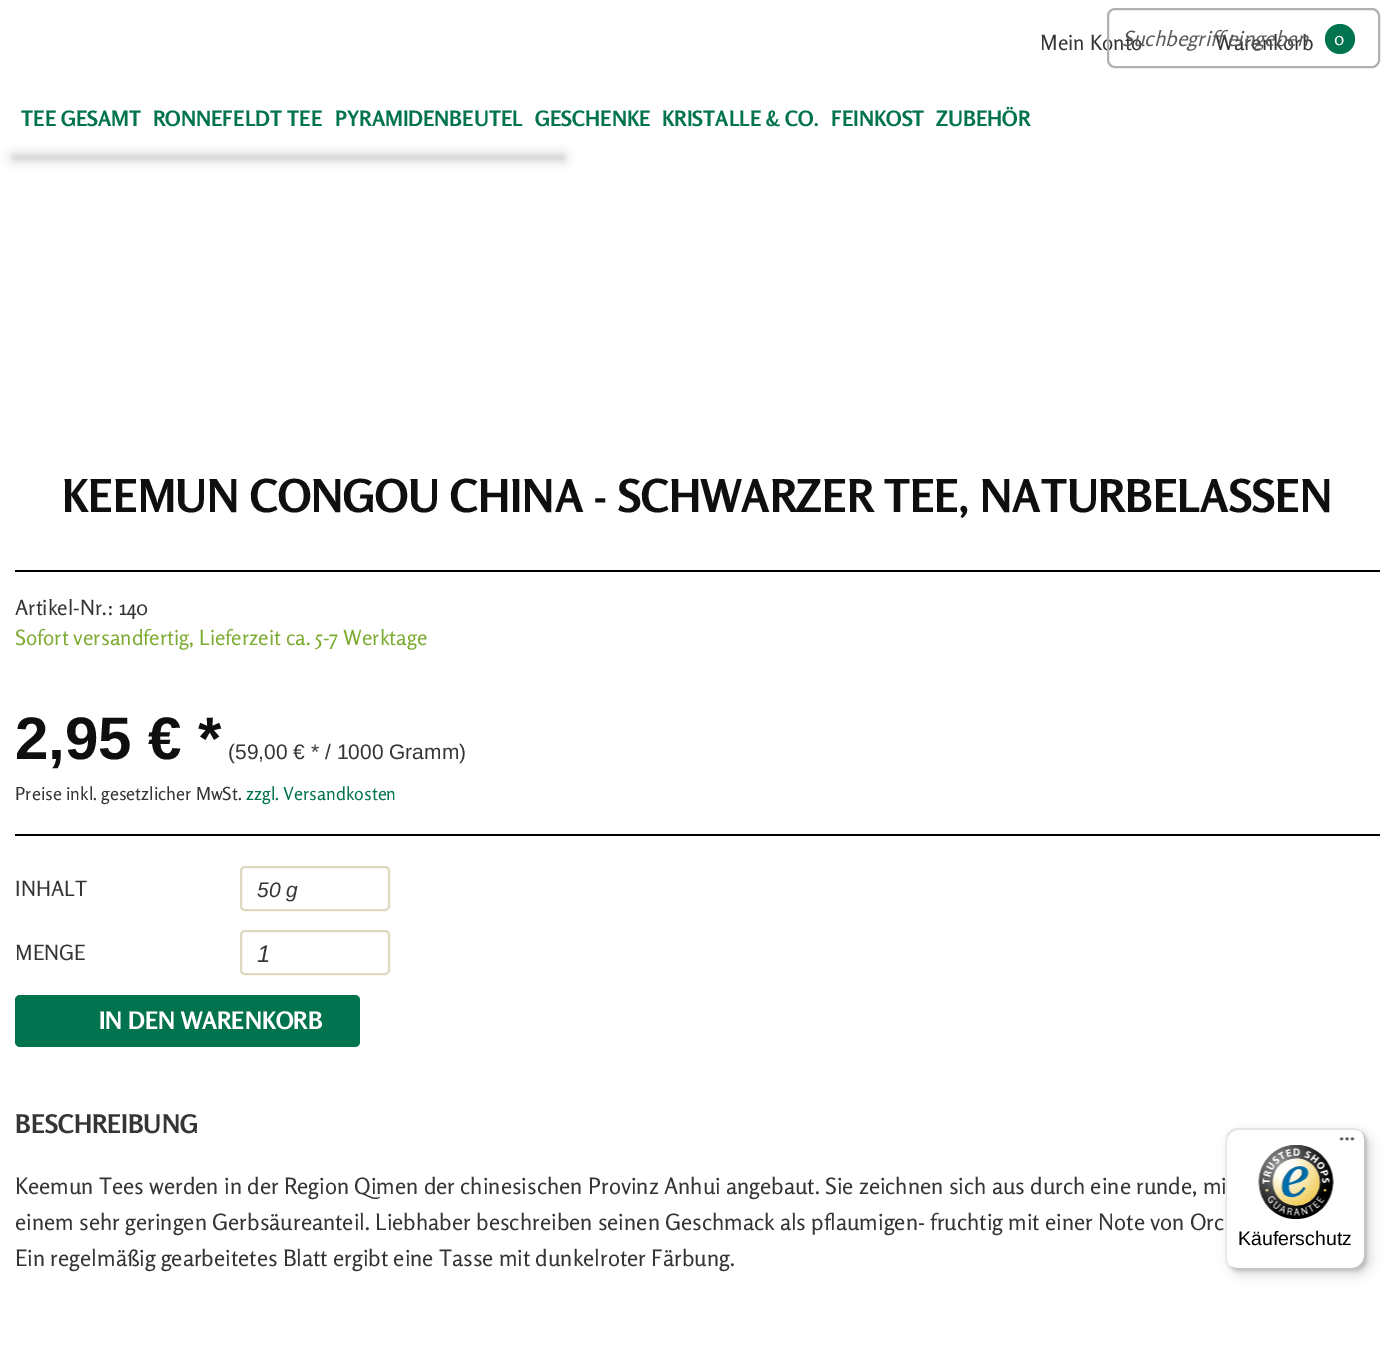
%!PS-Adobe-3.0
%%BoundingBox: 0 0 1394 1350
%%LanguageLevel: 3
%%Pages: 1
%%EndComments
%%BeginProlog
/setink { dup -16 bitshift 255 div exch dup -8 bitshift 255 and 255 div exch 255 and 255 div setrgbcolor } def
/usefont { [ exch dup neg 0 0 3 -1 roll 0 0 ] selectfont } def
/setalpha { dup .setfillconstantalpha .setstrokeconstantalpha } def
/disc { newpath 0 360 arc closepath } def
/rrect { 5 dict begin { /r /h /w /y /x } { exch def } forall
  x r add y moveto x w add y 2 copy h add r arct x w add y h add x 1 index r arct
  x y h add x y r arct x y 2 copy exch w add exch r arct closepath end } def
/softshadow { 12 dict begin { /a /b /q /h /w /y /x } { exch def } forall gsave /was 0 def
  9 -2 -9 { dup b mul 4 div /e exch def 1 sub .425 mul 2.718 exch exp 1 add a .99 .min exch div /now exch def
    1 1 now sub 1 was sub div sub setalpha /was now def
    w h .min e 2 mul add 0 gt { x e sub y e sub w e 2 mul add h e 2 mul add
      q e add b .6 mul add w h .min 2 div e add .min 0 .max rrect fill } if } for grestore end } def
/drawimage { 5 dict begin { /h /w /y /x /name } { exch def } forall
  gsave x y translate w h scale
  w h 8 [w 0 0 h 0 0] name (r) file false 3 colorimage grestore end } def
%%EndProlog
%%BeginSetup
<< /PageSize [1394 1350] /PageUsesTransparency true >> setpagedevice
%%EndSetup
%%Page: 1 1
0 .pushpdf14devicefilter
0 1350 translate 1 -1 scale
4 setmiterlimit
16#FFFFFF setink
0 0 1394 1350 rectfill
/Rosario-Regular 21 usefont
16#353535 setink
1040 50 moveto (Mein Konto) show
16#01734F setink
1340 39 15 disc fill
16#B1B1B1 setink
2 setlinewidth
1108 9 271 58 7 rrect stroke
16#353535 setink
1215 50 moveto (Warenkorb) show
/Rosario-Italic 21 usefont
16#5B5B5B setink
1122 46 moveto (Suchbegriff eingeben) show
/Rosario-Bold 21 usefont
16#01734F setink
[
    [(TEE GESAMT) 21 126]
    [(RONNEFELDT TEE) 153 126]
    [(PYRAMIDENBEUTEL) 335 126]
    [(GESCHENKE) 535 126]
    [(KRISTALLE & CO.) 662 126]
    [(FEINKOST) 831 126]
    [(ZUBEHÖR) 936 126]
] { aload pop moveto show } forall
16#000000 setink
14 156 549 3 0 6 0.25 softshadow
/Rosario-Regular 18 usefont
16#FFFFFF setink
1334 45 moveto (0) show
16#000000 setink
15 570 1365 2 rectfill
/Rosario-Bold 45 usefont
16#0F0F0F setink
62 512 moveto (KEEMUN CONGOU CHINA - SCHWARZER TEE, NATURBELASSEN) show
/Rosario-Regular 21 usefont
16#353535 setink
15 615 moveto (Artikel-Nr.: 140) show
16#7EAC32 setink
15 645 moveto (Sofort versandfertig, Lieferzeit ca. 5-7 Werktage) show
/LiberationSans-Bold 60 usefont
16#0F0F0F setink
15 759 moveto (2,95 € *) show
/LiberationSans-Regular 21 usefont
16#353535 setink
228 759 moveto (\(59,00 € * / 1000 Gramm\)) show
/Rosario-Regular 18 usefont
15 800 moveto (Preise inkl. gesetzlicher MwSt.) show
16#01734F setink
246 800 moveto (zzgl. Versandkosten) show
16#000000 setink
15 834 1365 2 rectfill
/Rosario-Regular 21 usefont
16#353535 setink
15 896 moveto (INHALT) show
16#DDD9C0 setink
241 867 148 43 4 rrect stroke
/LiberationSans-Italic 21 usefont
16#353535 setink
257 897 moveto (50 g) show
/Rosario-Regular 21 usefont
15 960 moveto (MENGE) show
16#DDD9C0 setink
241 931 148 43 4 rrect stroke
/LiberationSans-Italic 24 usefont
16#353535 setink
257 962 moveto (1) show
16#01734F setink
15 995 345 52 5 rrect fill
/Rosario-Bold 24 usefont
16#FFFFFF setink
99 1029 moveto (IN DEN WARENKORB) show
/Rosario-Bold 25.5 usefont
16#353535 setink
15 1133 moveto (BESCHREIBUNG) show
/Rosario-Regular 22.5 usefont
[
    [(Keemun Tees werden in der Region Qimen der chinesischen Provinz Anhui angebaut. Sie zeichnen sich aus durch eine runde, mi) 15 1194]
    [(einem sehr geringen Gerbsäureanteil. Liebhaber beschreiben seinen Geschmack als pflaumigen- fruchtig mit einer Note von Orc) 15 1230]
    [(Ein regelmäßig gearbeitetes Blatt ergibt eine Tasse mit dunkelroter Färbung.) 15 1266]
] { aload pop moveto show } forall
16#000000 setink
1230 1133 140 141 12 6 0.15 softshadow
1227 1130 140 141 12 1.5 0.15 softshadow
16#FFFFFF setink
1226 1128 139 141 12 rrect fill
16#E5E5E5 setink
1239 1130 moveto 1354 1130 lineto 1358 1130 1362 1132 1364 1135 curveto 1362 1131 1358 1128 1353 1128 curveto 1238 1128 lineto 1231 1128 1226 1133 1226 1140 curveto 1226 1257 lineto 1226 1260 1227 1263 1229 1265 curveto 1228 1263 1227 1261 1227 1258 curveto 1227 1142 lineto 1227 1135 1232 1130 1239 1130 curveto closepath fill
0.2 setalpha
16#000000 setink
1232 1267 moveto 1233 1268 1236 1269 1238 1269 curveto 1353 1269 lineto 1360 1269 1365 1264 1365 1257 curveto 1365 1140 lineto 1365 1137 1364 1135 1362 1133 curveto 1363 1134 1364 1136 1364 1138 curveto 1364 1256 lineto 1364 1262 1358 1268 1352 1268 curveto 1236 1268 lineto closepath fill
16#323232 setink
1230 1266 moveto 1232 1268 1235 1269 1238 1269 curveto 1353 1269 lineto 1360 1269 1365 1264 1365 1257 curveto 1365 1140 lineto 1365 1137 1364 1134 1362 1132 curveto 1363 1134 1364 1136 1364 1139 curveto 1364 1256 lineto 1364 1263 1359 1268 1352 1268 curveto 1237 1268 lineto 1234 1268 1232 1267 1230 1266 curveto closepath fill
0.3 setalpha
16#FFFFFF setink
1230 1266 moveto 1232 1268 1235 1269 1238 1269 curveto 1353 1269 lineto 1360 1269 1365 1264 1365 1257 curveto 1365 1140 lineto 1365 1136 1363 1133 1361 1131 curveto 1363 1133 1364 1136 1364 1139 curveto 1364 1256 lineto 1364 1263 1359 1268 1352 1268 curveto 1237 1268 lineto 1234 1268 1232 1267 1230 1266 curveto closepath fill
1 setalpha
(img1.raw) 1339 1137 16 4 drawimage
(img2.raw) 1258 1145 76 75 drawimage
/LiberationSans-Regular 19.5 usefont
16#000000 setink
1238 1245 moveto (Käuferschutz) show
.poppdf14devicefilter showpage
%%EOF
